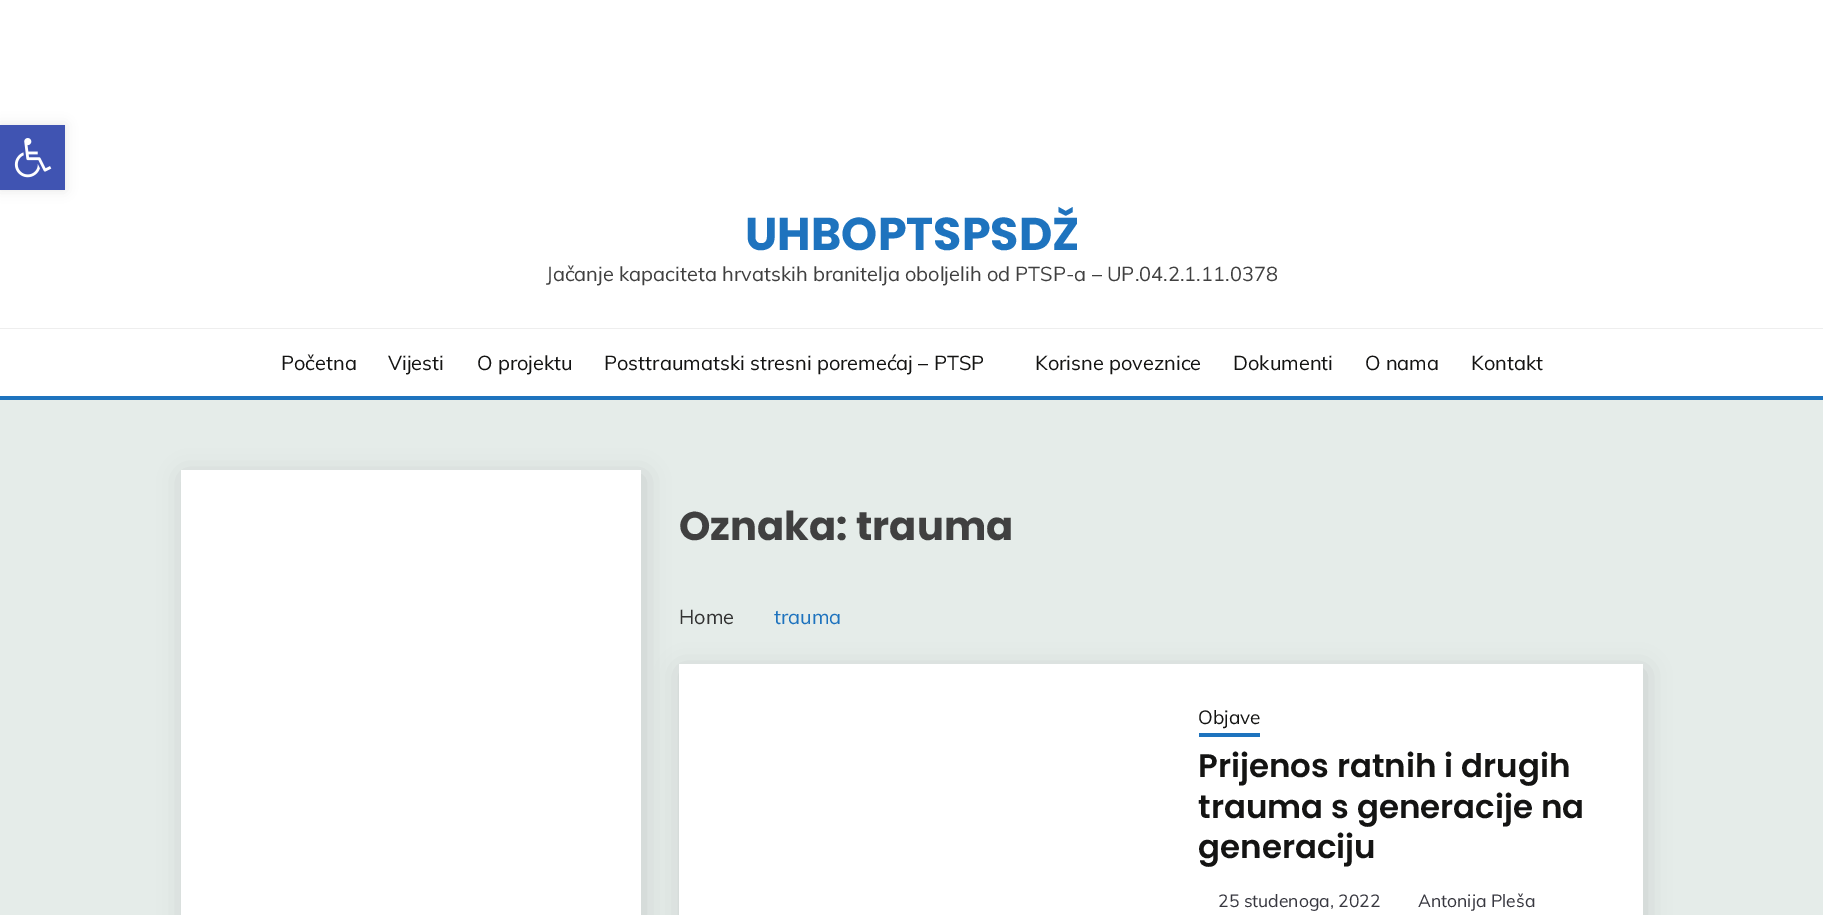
%!PS-Adobe-3.0
%%BoundingBox: 0 0 1823 915
%%LanguageLevel: 3
%%Pages: 1
%%EndComments
%%BeginProlog
/setink { dup -16 bitshift 255 div exch dup -8 bitshift 255 and 255 div exch 255 and 255 div setrgbcolor } def
/usefont { [ exch dup neg 0 0 3 -1 roll 0 0 ] selectfont } def
/setalpha { dup .setfillconstantalpha .setstrokeconstantalpha } def
/rrect { 5 dict begin { /r /h /w /y /x } { exch def } forall
  x r add y moveto x w add y 2 copy h add r arct x w add y h add x 1 index r arct
  x y h add x y r arct x y 2 copy exch w add exch r arct closepath end } def
/softshadow { 12 dict begin { /a /b /q /h /w /y /x } { exch def } forall gsave /was 0 def
  9 -2 -9 { dup b mul 4 div /e exch def 1 sub .425 mul 2.718 exch exp 1 add a .99 .min exch div /now exch def
    1 1 now sub 1 was sub div sub setalpha /was now def
    w h .min e 2 mul add 0 gt { x e sub y e sub w e 2 mul add h e 2 mul add
      q e add b .6 mul add w h .min 2 div e add .min 0 .max rrect fill } if } for grestore end } def
/drawimage { 5 dict begin { /h /w /y /x /name } { exch def } forall
  gsave x y translate w h scale
  w h 8 [w 0 0 h 0 0] name (r) file false 3 colorimage grestore end } def
%%EndProlog
%%BeginSetup
<< /PageSize [1823 915] /PageUsesTransparency true >> setpagedevice
%%EndSetup
%%Page: 1 1
0 .pushpdf14devicefilter
0 915 translate 1 -1 scale
4 setmiterlimit
16#E5ECE9 setink
0 0 1823 915 rectfill
16#FFFFFF setink
0 0 1823 396 rectfill
16#000000 setink
0 125 65 65 0 6 0.1 softshadow
16#4054B2 setink
0 125 65 65 rectfill
(img1.raw) 14 138 38 40 drawimage
16#EEEEEE setink
0 328 1823 1 rectfill
/Poppins-Bold 46 usefont
16#1E73BE setink
745 250 moveto (UHBOPTSPSDŽ) show
/Muli-Regular 20 usefont
16#404040 setink
546 281 moveto (Jačanje kapaciteta hrvatskih branitelja oboljelih od PTSP-a – UP.04.2.1.11.0378) show
16#1E73BE setink
0 396 1823 4 rectfill
16#141413 setink
[
    [(Početna) 281 370]
    [(Vijesti) 388 370]
    [(O projektu) 477 370]
    [(Posttraumatski stresni poremećaj – PTSP) 604 370]
    [(Korisne poveznice) 1035 370]
    [(Dokumenti) 1233 370]
    [(O nama) 1365 370]
    [(Kontakt) 1471 370]
] { aload pop moveto show } forall
16#000000 setink
681 670 964 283 0 12.5 0.14 softshadow
16#FFFFFF setink
679 664 964 251 rectfill
16#000000 setink
184 476 460 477 0 12.5 0.14 softshadow
16#FFFFFF setink
181 470 460 445 rectfill
/Poppins-Bold 40 usefont
16#404040 setink
679 540 moveto (Oznaka: trauma) show
/Muli-Regular 20 usefont
16#333333 setink
679 624 moveto (Home) show
16#1E73BE setink
774 624 moveto (trauma) show
/Muli-Regular 19 usefont
16#141413 setink
1198 724 moveto (Objave) show
16#1E73BE setink
1199 733 61 4 rectfill
/Poppins-SemiBold 32.5 usefont
16#141413 setink
[
    [(Prijenos ratnih i drugih) 1198 777]
    [(trauma s generacije na) 1198 818]
    [(generaciju) 1198 858]
] { aload pop moveto show } forall
/Muli-Regular 17.5 usefont
16#37373F setink
1218 907 moveto (25 studenoga, 2022) show
1418 907 moveto (Antonija Pleša) show
.poppdf14devicefilter showpage
%%EOF
